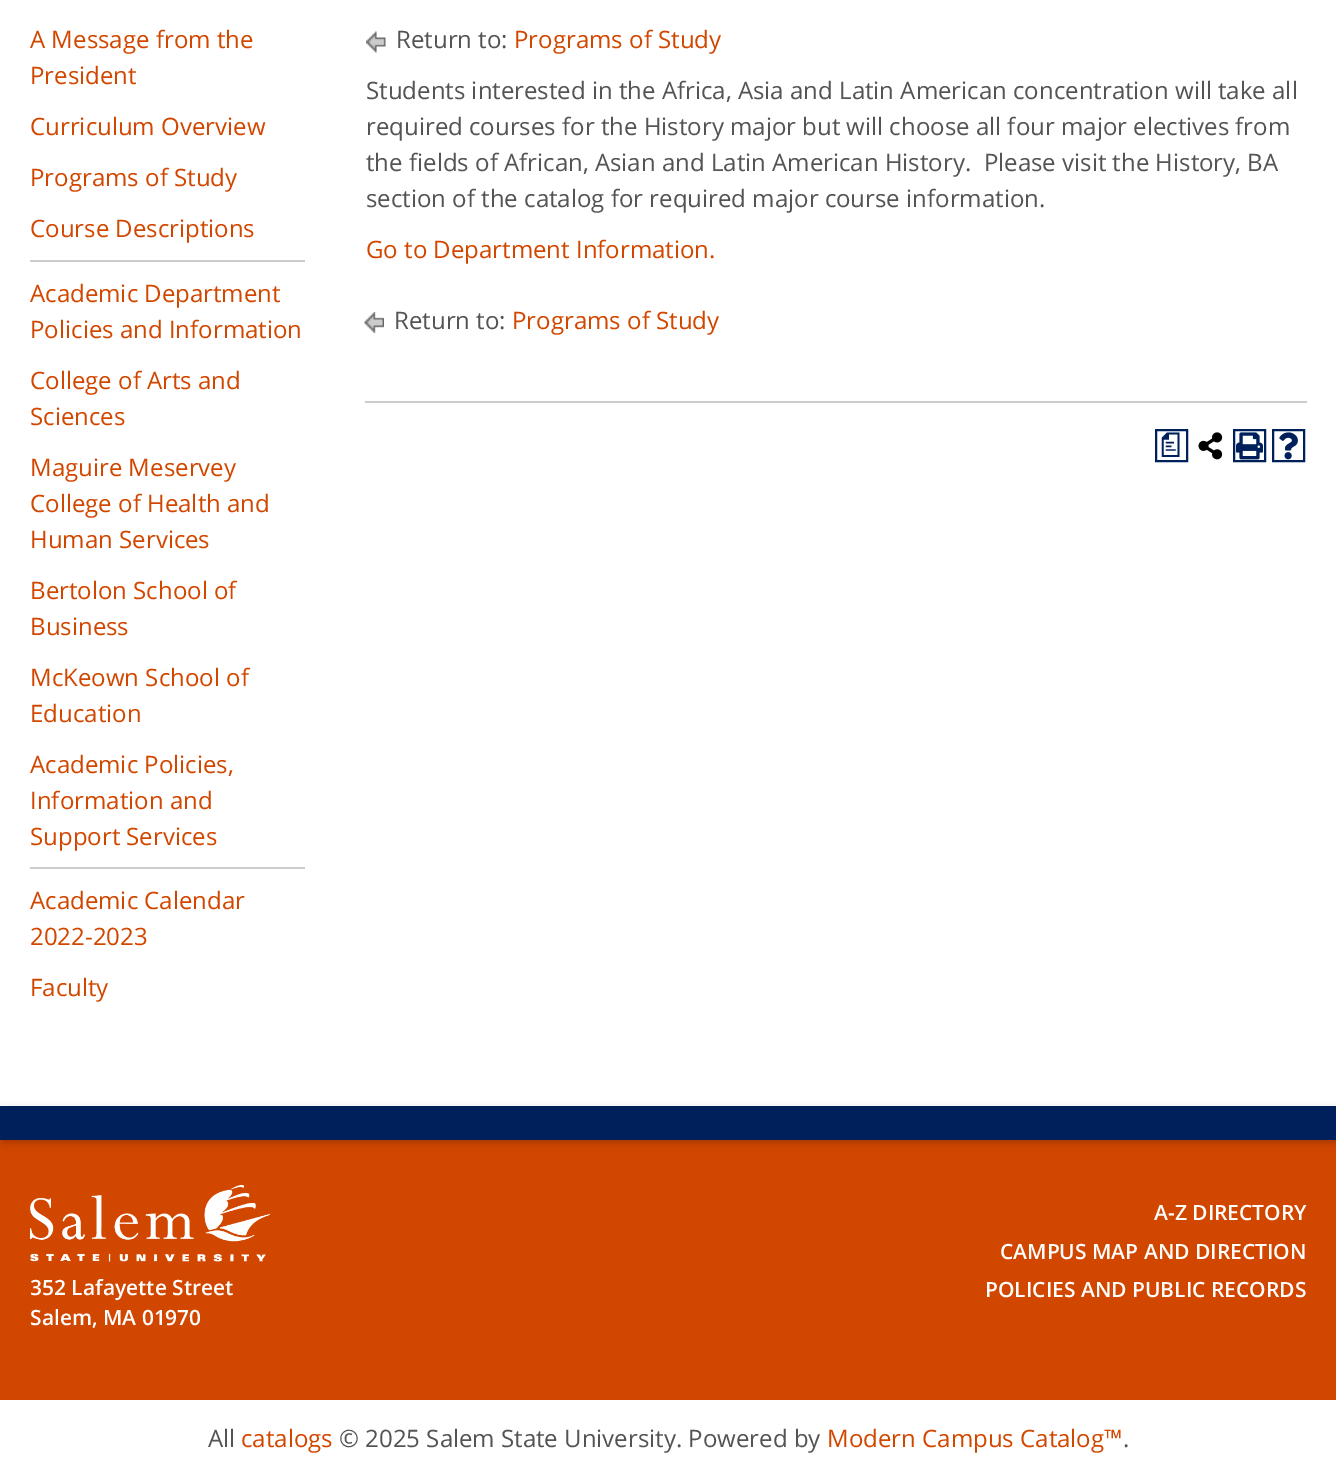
%!PS-Adobe-3.0
%%BoundingBox: 0 0 1336 1475
%%LanguageLevel: 3
%%Pages: 1
%%EndComments
%%BeginProlog
/setink { dup -16 bitshift 255 div exch dup -8 bitshift 255 and 255 div exch 255 and 255 div setrgbcolor } def
/usefont { [ exch dup neg 0 0 3 -1 roll 0 0 ] selectfont } def
/setalpha { dup .setfillconstantalpha .setstrokeconstantalpha } def
/rrect { 5 dict begin { /r /h /w /y /x } { exch def } forall
  x r add y moveto x w add y 2 copy h add r arct x w add y h add x 1 index r arct
  x y h add x y r arct x y 2 copy exch w add exch r arct closepath end } def
/softshadow { 12 dict begin { /a /b /q /h /w /y /x } { exch def } forall gsave /was 0 def
  9 -2 -9 { dup b mul 4 div /e exch def 1 sub .425 mul 2.718 exch exp 1 add a .99 .min exch div /now exch def
    1 1 now sub 1 was sub div sub setalpha /was now def
    w h .min e 2 mul add 0 gt { x e sub y e sub w e 2 mul add h e 2 mul add
      q e add b .6 mul add w h .min 2 div e add .min 0 .max rrect fill } if } for grestore end } def
/drawimage { 5 dict begin { /h /w /y /x /name } { exch def } forall
  gsave x y translate w h scale
  w h 8 [w 0 0 h 0 0] name (r) file false 3 colorimage grestore end } def
%%EndProlog
%%BeginSetup
<< /PageSize [1336 1475] /PageUsesTransparency true >> setpagedevice
%%EndSetup
%%Page: 1 1
0 .pushpdf14devicefilter
0 1475 translate 1 -1 scale
4 setmiterlimit
16#FFFFFF setink
0 0 1336 1475 rectfill
/OpenSans-Regular 24 usefont
16#D24700 setink
[
    [(A Message from the) 30 48]
    [(President) 30 84]
    [(Curriculum Overview) 30 135]
    [(Programs of Study) 30 186]
    [(Course Descriptions) 30 237]
] { aload pop moveto show } forall
16#CCCCCC setink
30 260 275 2 rectfill
16#D24700 setink
[
    [(Academic Department) 30 302]
    [(Policies and Information) 30 338]
    [(College of Arts and) 30 389]
    [(Sciences) 30 425]
    [(Maguire Meservey) 30 476]
    [(College of Health and) 30 512]
    [(Human Services) 30 548]
    [(Bertolon School of) 30 599]
    [(Business) 30 635]
    [(McKeown School of) 30 686]
    [(Education) 30 722]
    [(Academic Policies,) 30 773]
    [(Information and) 30 809]
    [(Support Services) 30 845]
] { aload pop moveto show } forall
16#CCCCCC setink
30 867 275 2 rectfill
16#D24700 setink
[
    [(Academic Calendar) 30 909]
    [(2022-2023) 30 945]
    [(Faculty) 30 996]
] { aload pop moveto show } forall
(img1.raw) 366 31 20 22 drawimage
16#545454 setink
396 48 moveto (Return to:) show
16#D24700 setink
514 48 moveto (Programs of Study) show
16#545454 setink
[
    [(Students interested in the Africa, Asia and Latin American concentration will take all) 366 99]
    [(required courses for the History major but will choose all four major electives from) 366 135]
    [(the fields of African, Asian and Latin American History.  Please visit the History, BA) 366 171]
    [(section of the catalog for required major course information.) 366 207]
] { aload pop moveto show } forall
16#D24700 setink
366 258 moveto (Go to Department Information.) show
(img2.raw) 364 312 20 21 drawimage
16#545454 setink
394 329 moveto (Return to:) show
16#D24700 setink
512 329 moveto (Programs of Study) show
16#CCCCCC setink
365 401 942 2 rectfill
16#00205B setink
2 setlinewidth
1156 430 31 31 rectstroke
/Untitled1-Medium 27 usefont
1157 453 moveto (a) show
(img3.raw) 1198 432 25 28 drawimage
1234 430 31 31 rectstroke
(img4.raw) 1236 432 27 28 drawimage
1273 430 31 31 rectstroke
(img5.raw) 1279 432 19 28 drawimage
16#D24700 setink
0 1140 1336 260 rectfill
16#000000 setink
3 1109 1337 34 0 4 0.2 softshadow
16#00205B setink
0 1106 1336 34 rectfill
/OpenSans-SemiBold 21 usefont
16#FFFFFF setink
[
    [(A-Z DIRECTORY) 1154 1220]
    [(CAMPUS MAP AND DIRECTION) 1000 1259]
    [(POLICIES AND PUBLIC RECORDS) 985 1297]
] { aload pop moveto show } forall
(img6.raw) 30 1185 240 77 drawimage
30 1295 moveto (352 Lafayette Street) show
30 1325 moveto (Salem, MA 01970) show
/OpenSans-Regular 24 usefont
16#545454 setink
208 1447 moveto (All) show
16#D24700 setink
241 1447 moveto (catalogs) show
16#545454 setink
339 1447 moveto (© 2025 Salem State University. Powered by) show
16#D24700 setink
827 1447 moveto (Modern Campus Catalog™) show
16#545454 setink
1123 1447 moveto (.) show
.poppdf14devicefilter showpage
%%EOF
